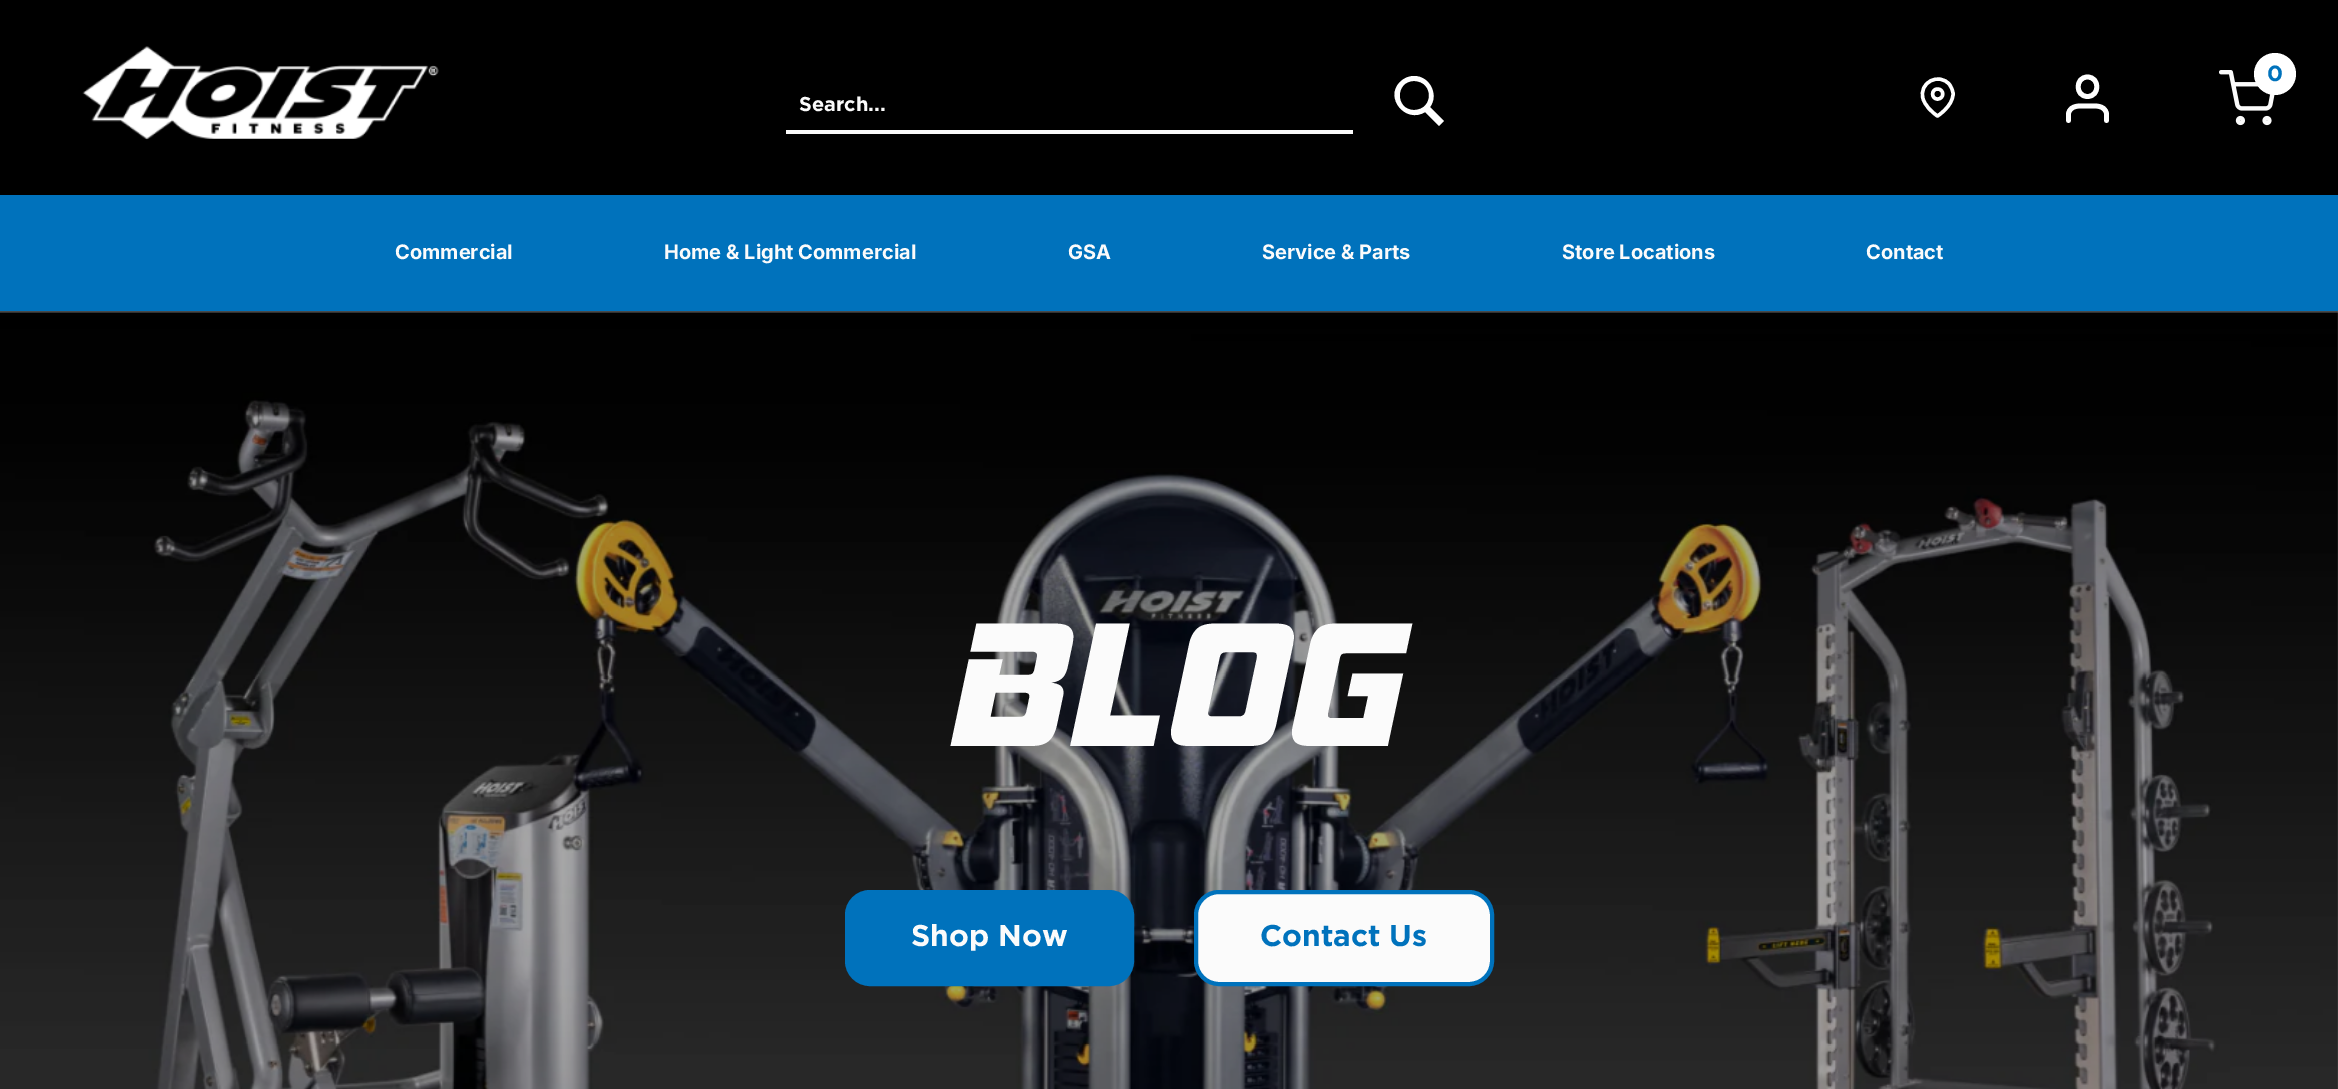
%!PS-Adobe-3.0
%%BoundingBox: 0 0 2338 1089
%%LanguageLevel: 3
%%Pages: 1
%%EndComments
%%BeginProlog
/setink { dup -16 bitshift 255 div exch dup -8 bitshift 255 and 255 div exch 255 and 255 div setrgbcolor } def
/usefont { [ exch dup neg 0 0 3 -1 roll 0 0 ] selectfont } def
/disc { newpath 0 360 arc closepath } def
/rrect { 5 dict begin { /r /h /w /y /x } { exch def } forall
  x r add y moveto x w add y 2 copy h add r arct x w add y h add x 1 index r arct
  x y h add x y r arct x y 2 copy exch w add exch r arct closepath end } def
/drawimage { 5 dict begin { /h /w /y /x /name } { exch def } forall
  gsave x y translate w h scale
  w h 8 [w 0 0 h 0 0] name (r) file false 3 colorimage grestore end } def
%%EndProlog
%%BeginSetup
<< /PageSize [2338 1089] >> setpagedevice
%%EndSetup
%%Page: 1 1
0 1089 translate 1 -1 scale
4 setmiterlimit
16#FFFFFF setink
0 0 2338 1089 rectfill
16#000000 setink
0 0 2338 195 rectfill
(img1.raw) 82 46 357 94 drawimage
16#FFFFFF setink
3.4 setlinewidth
1 setlinecap
1 setlinejoin
1953 94 moveto 1953 106 1937.5 116 1937.5 116 curveto 1931.5 112 1925 105.5 1923 98.5 curveto 1918.5 82.5 1939 72 1949.5 84.5 curveto 1951.5 87.5 1953 90.5 1953 94 curveto closepath 1937.5 99 moveto 1944.5 99 1944.5 89 1937.5 89 curveto 1931 89 1931 99 1937.5 99 curveto closepath stroke
4.8 setlinewidth
2106.5 120.5 moveto 2106.5 113.5 lineto 2104.5 104.5 2094.5 106 2087.5 106 curveto 2080.5 106 2070.5 104.5 2068.5 113.5 curveto 2068.5 120.5 lineto 2087.5 96.5 moveto 2100 96.5 2100 77 2087.5 77 curveto 2075 77 2075 96.5 2087.5 96.5 curveto closepath stroke
(img2.raw) 2219 70 56 56 drawimage
2275 74 21 disc fill
/Gotham-Bold 22 usefont
16#0072BC setink
2267 81 moveto (0) show
16#FBFBFB setink
786 130 567 4 rectfill
/Gotham-Bold 20 usefont
799 111 moveto (Search...) show
16#FFFFFF setink
1414 76 moveto 1409 76 1404 78 1400 82 curveto 1384 98 1406 124 1425 112 curveto 1439 126 lineto 1444 121 lineto 1430 107 lineto 1439 95 1430 76 1414 76 curveto closepath 1414 81 moveto 1434 81 1434 110 1414 110 curveto 1395 110 1395 81 1414 81 curveto closepath fill
16#0072BC setink
0 195 2338 116 rectfill
/Inter-Bold 20 usefont
16#FBFBFB setink
[
    [(Commercial) 395 259]
    [(Home & Light Commercial) 664 259]
    [(GSA) 1068 259]
    [(Service & Parts) 1262 259]
    [(Store Locations) 1562 259]
    [(Contact) 1866 259]
] { aload pop moveto show } forall
(img3.raw) 0 311 2338 778 drawimage
/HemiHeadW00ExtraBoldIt-ExtraBoldItalic 181 usefont
941 746 moveto (BLOG) show
16#0072BC setink
847 892 285 92 23 rrect gsave fill grestore
4 setlinewidth
0 setlinecap
0 setlinejoin
stroke
/Gotham-Bold 30 usefont
16#FBFBFB setink
911 946 moveto (Shop Now) show
1196 892 296 92 23 rrect gsave fill grestore
16#0072BC setink
stroke
1260 946 moveto (Contact Us) show
showpage
%%EOF
